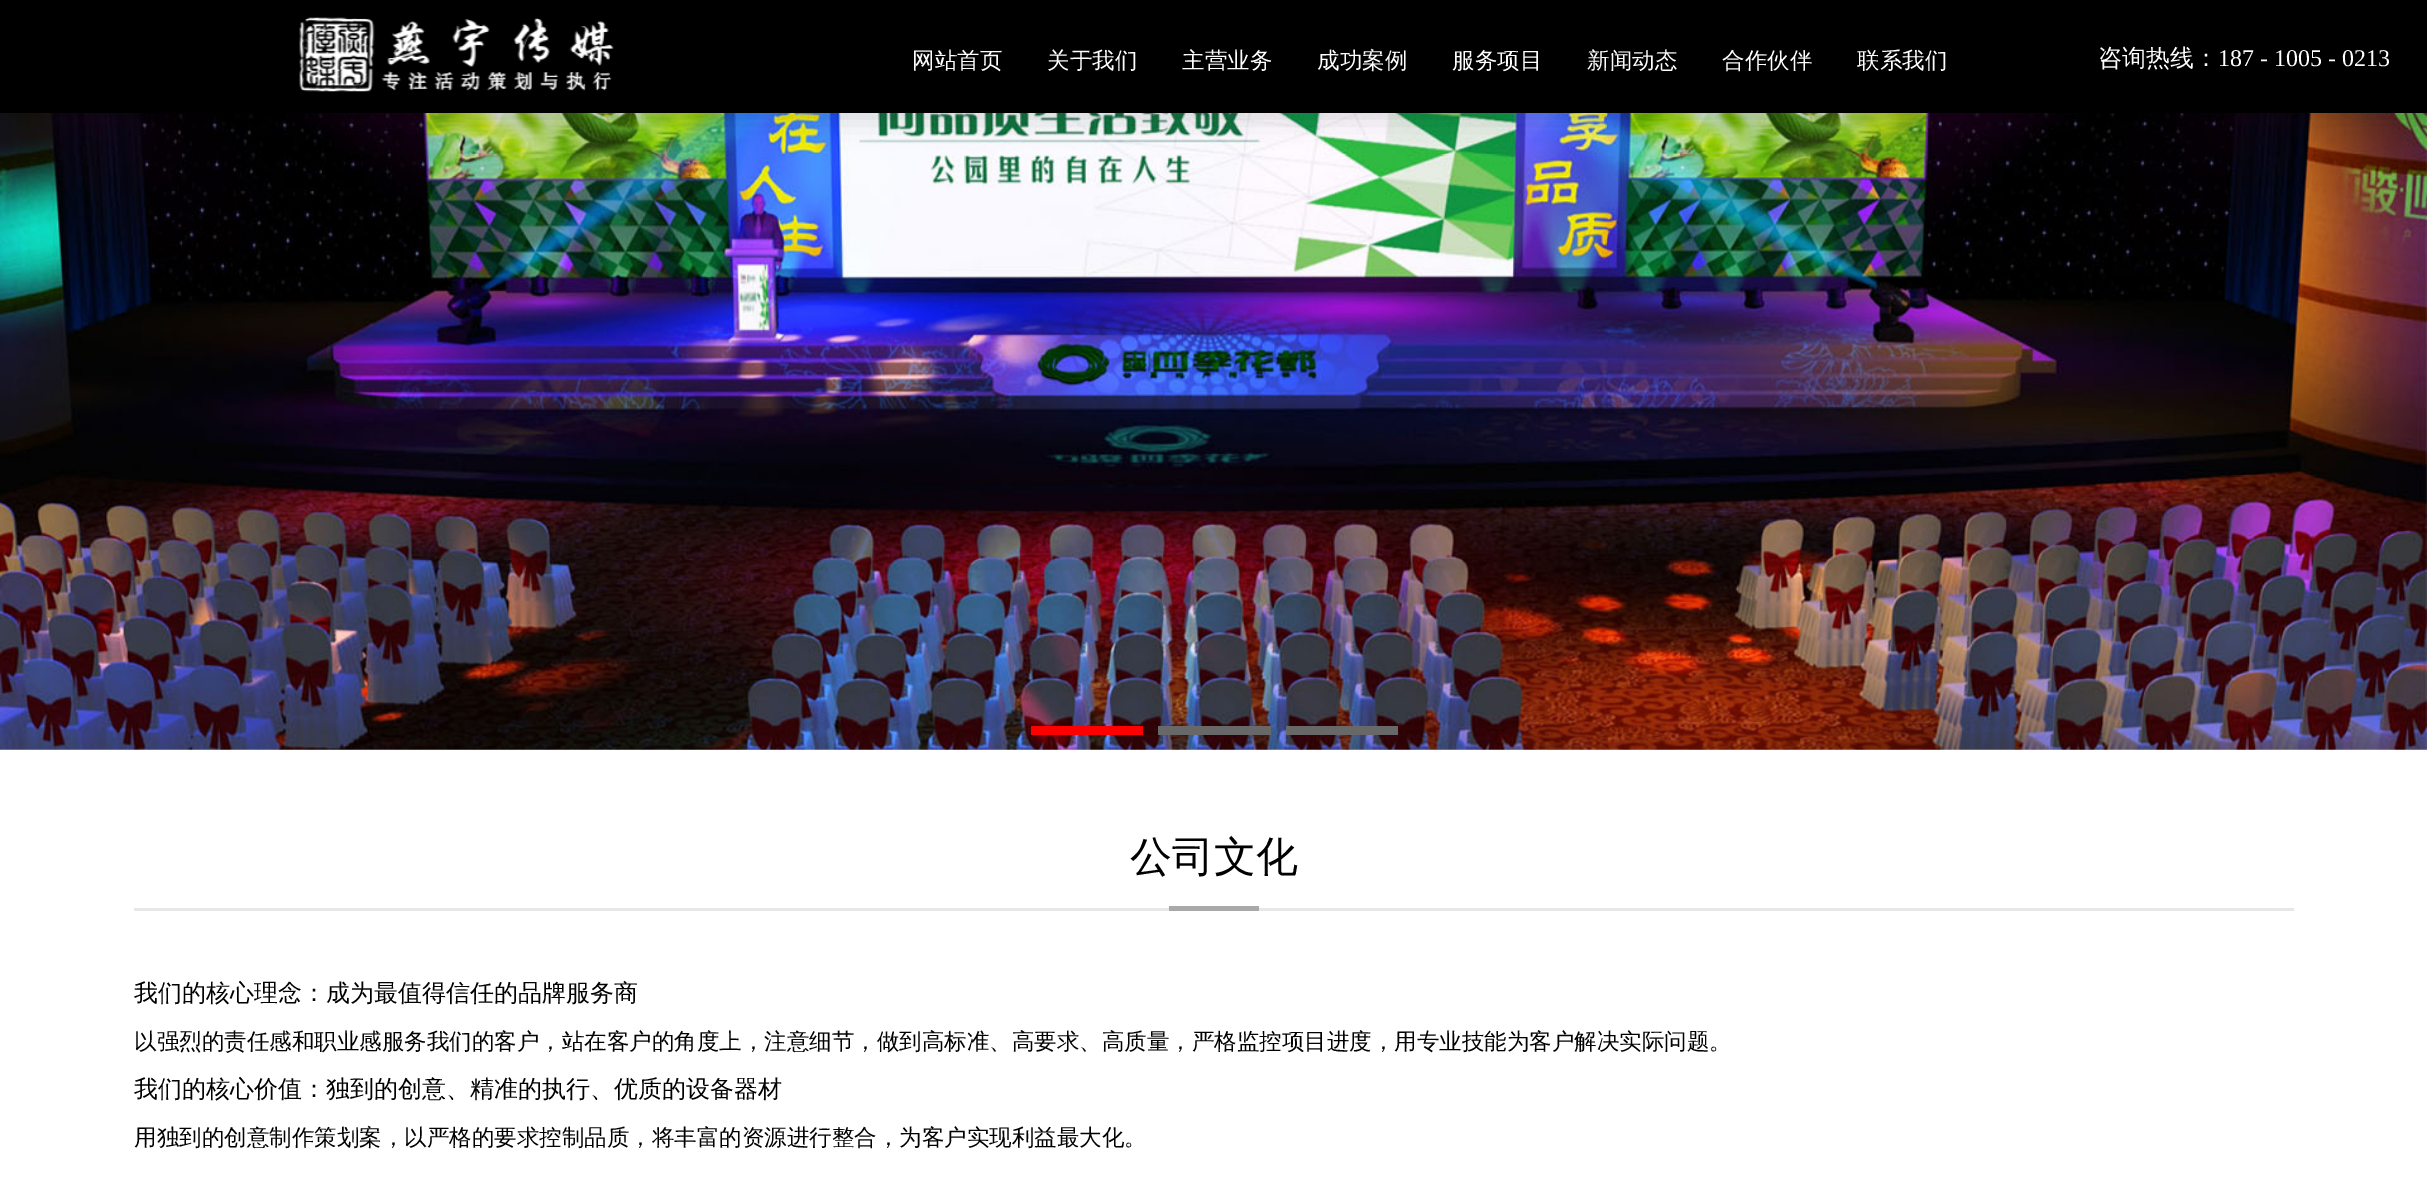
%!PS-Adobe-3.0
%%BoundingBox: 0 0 2427 1181
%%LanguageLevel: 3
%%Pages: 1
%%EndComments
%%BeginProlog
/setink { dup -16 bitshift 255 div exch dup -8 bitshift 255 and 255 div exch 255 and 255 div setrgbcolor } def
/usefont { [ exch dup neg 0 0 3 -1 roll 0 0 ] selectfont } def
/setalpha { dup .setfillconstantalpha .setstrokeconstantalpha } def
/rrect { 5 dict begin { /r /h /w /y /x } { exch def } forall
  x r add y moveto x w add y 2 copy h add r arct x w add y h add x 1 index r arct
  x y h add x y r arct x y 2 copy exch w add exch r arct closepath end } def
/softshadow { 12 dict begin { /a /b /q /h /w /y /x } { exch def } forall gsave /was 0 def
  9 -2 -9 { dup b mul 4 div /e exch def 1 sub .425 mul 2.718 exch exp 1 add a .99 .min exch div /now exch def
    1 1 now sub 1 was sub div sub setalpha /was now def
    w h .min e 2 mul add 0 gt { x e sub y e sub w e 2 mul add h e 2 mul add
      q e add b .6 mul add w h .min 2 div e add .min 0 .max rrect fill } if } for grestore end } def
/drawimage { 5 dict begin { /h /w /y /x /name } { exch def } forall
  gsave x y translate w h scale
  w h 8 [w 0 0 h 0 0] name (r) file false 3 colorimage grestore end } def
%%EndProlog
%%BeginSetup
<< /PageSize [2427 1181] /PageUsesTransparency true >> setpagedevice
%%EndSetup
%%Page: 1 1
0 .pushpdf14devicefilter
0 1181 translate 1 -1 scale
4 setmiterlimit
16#FFFFFF setink
0 0 2427 1181 rectfill
16#000000 setink
0 0 2427 113 rectfill
(img2.raw) 0 113 2427 637 drawimage
gsave
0 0 moveto 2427 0 lineto 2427 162 lineto 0 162 lineto closepath 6 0 moveto 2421 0 lineto 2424.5 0 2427 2.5 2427 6 curveto 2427 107 lineto 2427 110.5 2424.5 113 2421 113 curveto 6 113 lineto 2.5 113 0 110.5 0 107 curveto 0 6 lineto 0 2.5 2.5 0 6 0 curveto closepath eoclip newpath
3 9 2421 107 3 15 0.18 softshadow
grestore
(img1.raw) 299 17 315 75 drawimage
/WenQuanYiZenHei-Medium 22.5 usefont
16#FFFFFF setink
[
    [(网站首页) 912 68]
    [(关于我们) 1047 68]
    [(主营业务) 1182 68]
    [(成功案例) 1317 68]
    [(服务项目) 1452 68]
    [(新闻动态) 1587 68]
    [(合作伙伴) 1722 68]
    [(联系我们) 1857 68]
] { aload pop moveto show } forall
/WenQuanYiZenHei-Medium 24 usefont
2098 66 moveto (咨询热线：) show
/LiberationSerif-Regular 24 usefont
2218 66 moveto (187 - 1005 - 0213) show
[
    [1031 726 112 9 16#FF0000]
    [1158 726 113 9 16#696869]
    [1286 726 112 9 16#696869]
] { aload pop setink rectfill } forall
/WenQuanYiZenHei-Medium 42 usefont
16#000000 setink
1130 871 moveto (公司文化) show
16#E7E7E7 setink
134 908 2160 3 rectfill
16#A9A9A9 setink
1169 906 90 5 rectfill
/WenQuanYiZenHei-Medium 24 usefont
16#000000 setink
134 1001 moveto (我们的核心理念：成为最值得信任的品牌服务商) show
/WenQuanYiZenHei-Medium 22.5 usefont
134 1049 moveto (以强烈的责任感和职业感服务我们的客户，站在客户的角度上，注意细节，做到高标准、高要求、高质量，严格监控项目进度，用专业技能为客户解决实际问题。) show
/WenQuanYiZenHei-Medium 24 usefont
134 1097 moveto (我们的核心价值：独到的创意、精准的执行、优质的设备器材) show
/WenQuanYiZenHei-Medium 22.5 usefont
134 1145 moveto (用独到的创意制作策划案，以严格的要求控制品质，将丰富的资源进行整合，为客户实现利益最大化。) show
.poppdf14devicefilter showpage
%%EOF
